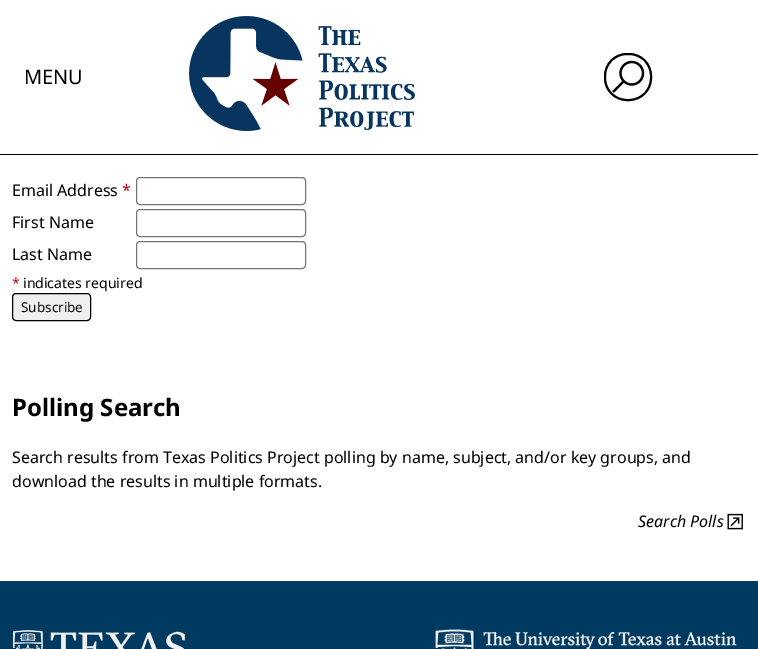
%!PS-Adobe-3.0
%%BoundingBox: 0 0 758 649
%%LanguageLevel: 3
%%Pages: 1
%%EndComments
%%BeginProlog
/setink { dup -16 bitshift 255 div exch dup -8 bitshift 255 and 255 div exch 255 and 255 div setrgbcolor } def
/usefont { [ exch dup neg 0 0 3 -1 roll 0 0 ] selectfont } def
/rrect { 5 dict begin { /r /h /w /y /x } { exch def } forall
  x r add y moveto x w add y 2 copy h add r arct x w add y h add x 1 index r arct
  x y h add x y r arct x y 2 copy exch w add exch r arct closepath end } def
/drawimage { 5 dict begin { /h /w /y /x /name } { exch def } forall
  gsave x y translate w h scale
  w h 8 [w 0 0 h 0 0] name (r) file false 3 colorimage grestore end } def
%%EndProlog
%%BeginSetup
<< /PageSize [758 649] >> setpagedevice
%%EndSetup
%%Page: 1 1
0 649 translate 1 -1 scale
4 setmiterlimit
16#FFFFFF setink
0 0 758 649 rectfill
16#000000 setink
0 154 758 1 rectfill
/NotoSans-Regular 20 usefont
24 84 moveto (MENU) show
(img1.raw) 189 16 226 115 drawimage
2 setlinewidth
605 54 46 46 22 rrect stroke
(img2.raw) 612 60 33 33 drawimage
/NotoSans-Regular 16 usefont
12 196 moveto (Email Address) show
16#C10007 setink
122 196 moveto (*) show
16#767676 setink
1 setlinewidth
136.5 177.5 169 27 3.5 rrect stroke
16#000000 setink
12 228 moveto (First Name) show
16#767676 setink
136.5 209.5 169 27 3.5 rrect stroke
16#000000 setink
12 260 moveto (Last Name) show
16#767676 setink
136.5 241.5 169 27 3.5 rrect stroke
/NotoSans-Regular 14 usefont
16#C10007 setink
12 288 moveto (*) show
16#000000 setink
23 288 moveto (indicates required) show
16#EFEFEF setink
12.5 293.5 78 27 3.5 rrect gsave fill grestore
16#000000 setink
stroke
/NotoSans-Regular 13.5 usefont
21 312 moveto (Subscribe) show
/NotoSans-Bold 24 usefont
12 416 moveto (Polling Search) show
/NotoSans-Regular 16 usefont
12 463 moveto (Search results from Texas Politics Project polling by name, subject, and/or key groups, and) show
12 487 moveto (download the results in multiple formats.) show
/NotoSans-Italic 16 usefont
638 527 moveto (Search Polls) show
(img3.raw) 727 513 16 17 drawimage
16#003A60 setink
0 581 758 68 rectfill
(img4.raw) 13 630 172 19 drawimage
12 648 4 1 rectfill
(img5.raw) 435 629 302 20 drawimage
435 648 4 1 rectfill
showpage
%%EOF
